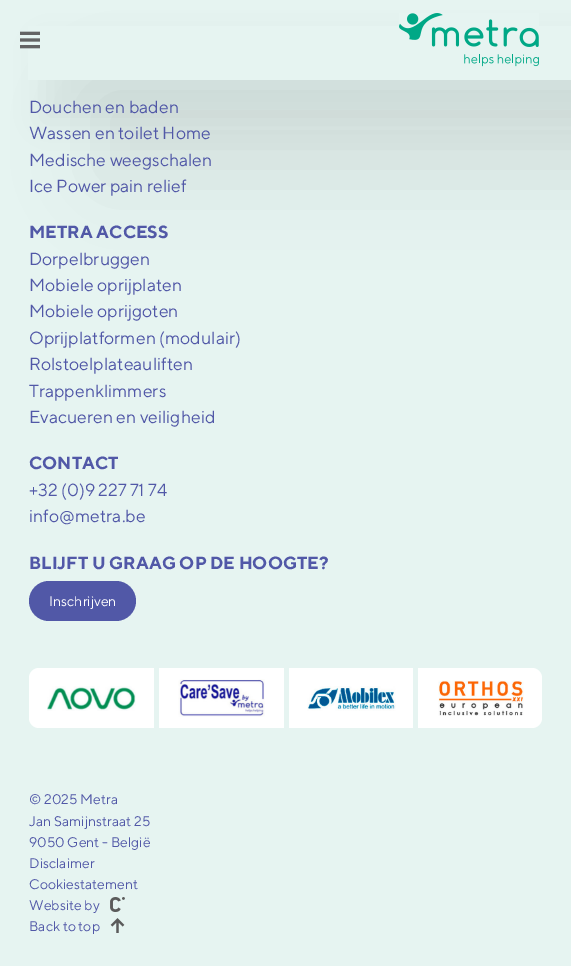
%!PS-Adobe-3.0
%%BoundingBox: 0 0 571 966
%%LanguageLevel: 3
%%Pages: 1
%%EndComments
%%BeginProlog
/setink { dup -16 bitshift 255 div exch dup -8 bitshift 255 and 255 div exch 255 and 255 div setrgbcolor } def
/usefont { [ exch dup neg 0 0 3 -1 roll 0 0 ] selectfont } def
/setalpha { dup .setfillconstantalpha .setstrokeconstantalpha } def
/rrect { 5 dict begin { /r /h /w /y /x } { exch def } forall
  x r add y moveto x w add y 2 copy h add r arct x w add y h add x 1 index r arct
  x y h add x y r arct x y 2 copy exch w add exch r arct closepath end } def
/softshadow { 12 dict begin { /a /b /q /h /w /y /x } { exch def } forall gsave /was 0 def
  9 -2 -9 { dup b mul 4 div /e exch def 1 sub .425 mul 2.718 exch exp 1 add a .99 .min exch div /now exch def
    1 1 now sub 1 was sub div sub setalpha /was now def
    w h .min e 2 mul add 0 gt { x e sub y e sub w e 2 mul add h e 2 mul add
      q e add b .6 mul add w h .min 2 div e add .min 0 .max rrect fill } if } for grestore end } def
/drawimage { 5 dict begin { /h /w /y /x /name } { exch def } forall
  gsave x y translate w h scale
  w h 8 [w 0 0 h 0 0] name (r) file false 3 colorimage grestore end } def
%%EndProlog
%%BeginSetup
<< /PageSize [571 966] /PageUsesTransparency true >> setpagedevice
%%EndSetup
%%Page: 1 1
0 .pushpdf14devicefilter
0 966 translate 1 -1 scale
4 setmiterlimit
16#E6F4F1 setink
0 0 571 966 rectfill
16#000000 setink
100 100 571 80 0 40 0.07 softshadow
42 42 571 80 0 16.5 0.05 softshadow
16#E6F4F1 setink
28 26 543 54 rectfill
(img1.raw) 20 31 20 18 drawimage
(img2.raw) 399 13 140 54 drawimage
/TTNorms-Regular 17.6 usefont
16#5158A7 setink
[
    [(Douchen en baden) 29 113]
    [(Wassen en toilet Home) 29 139]
    [(Medische weegschalen) 29 166]
    [(Ice Power pain relief) 29 192]
] { aload pop moveto show } forall
/TTNorms-Bold 17.6 usefont
29 238 moveto (METRA ACCESS) show
/TTNorms-Regular 17.6 usefont
[
    [(Dorpelbruggen) 29 265]
    [(Mobiele oprijplaten) 29 291]
    [(Mobiele oprijgoten) 29 317]
    [(Oprijplatformen \(modulair\)) 29 344]
    [(Rolstoelplateauliften) 29 370]
    [(Trappenklimmers) 29 397]
    [(Evacueren en veiligheid) 29 423]
] { aload pop moveto show } forall
/TTNorms-Bold 17.6 usefont
29 469 moveto (CONTACT) show
/TTNorms-Regular 17.6 usefont
29 496 moveto (+32 \(0\)9 227 71 74) show
29 522 moveto (info@metra.be) show
/TTNorms-Bold 17.6 usefont
29 569 moveto (BLIJFT U GRAAG OP DE HOOGTE?) show
29 581 107 40 20 rrect fill
/TTNorms-Regular 14 usefont
16#FFFFFF setink
49 606 moveto (Inschrijven) show
39 668 moveto 154 668 lineto 154 728 lineto 39 728 lineto 33.5 728 29 723.5 29 718 curveto 29 678 lineto 29 672.5 33.5 668 39 668 curveto closepath fill
(img3.raw) 47 686 89 25 drawimage
159 668 125 60 rectfill
(img4.raw) 178 679 87 38 drawimage
289 668 124 60 rectfill
(img5.raw) 307 686 89 25 drawimage
418 668 moveto 532 668 lineto 537.5 668 542 672.5 542 678 curveto 542 718 lineto 542 723.5 537.5 728 532 728 curveto 418 728 lineto closepath fill
(img6.raw) 438 680 86 36 drawimage
16#5158A7 setink
[
    [(© 2025 Metra) 29 804]
    [(Jan Samijnstraat 25) 29 826]
    [(9050 Gent - België) 29 847]
    [(Disclaimer) 29 868]
    [(Cookiestatement) 29 889]
    [(Website by) 29 910]
] { aload pop moveto show } forall
(img7.raw) 110 897 15 15 drawimage
29 931 moveto (Back to top) show
(img8.raw) 110 918 15 15 drawimage
.poppdf14devicefilter showpage
%%EOF
